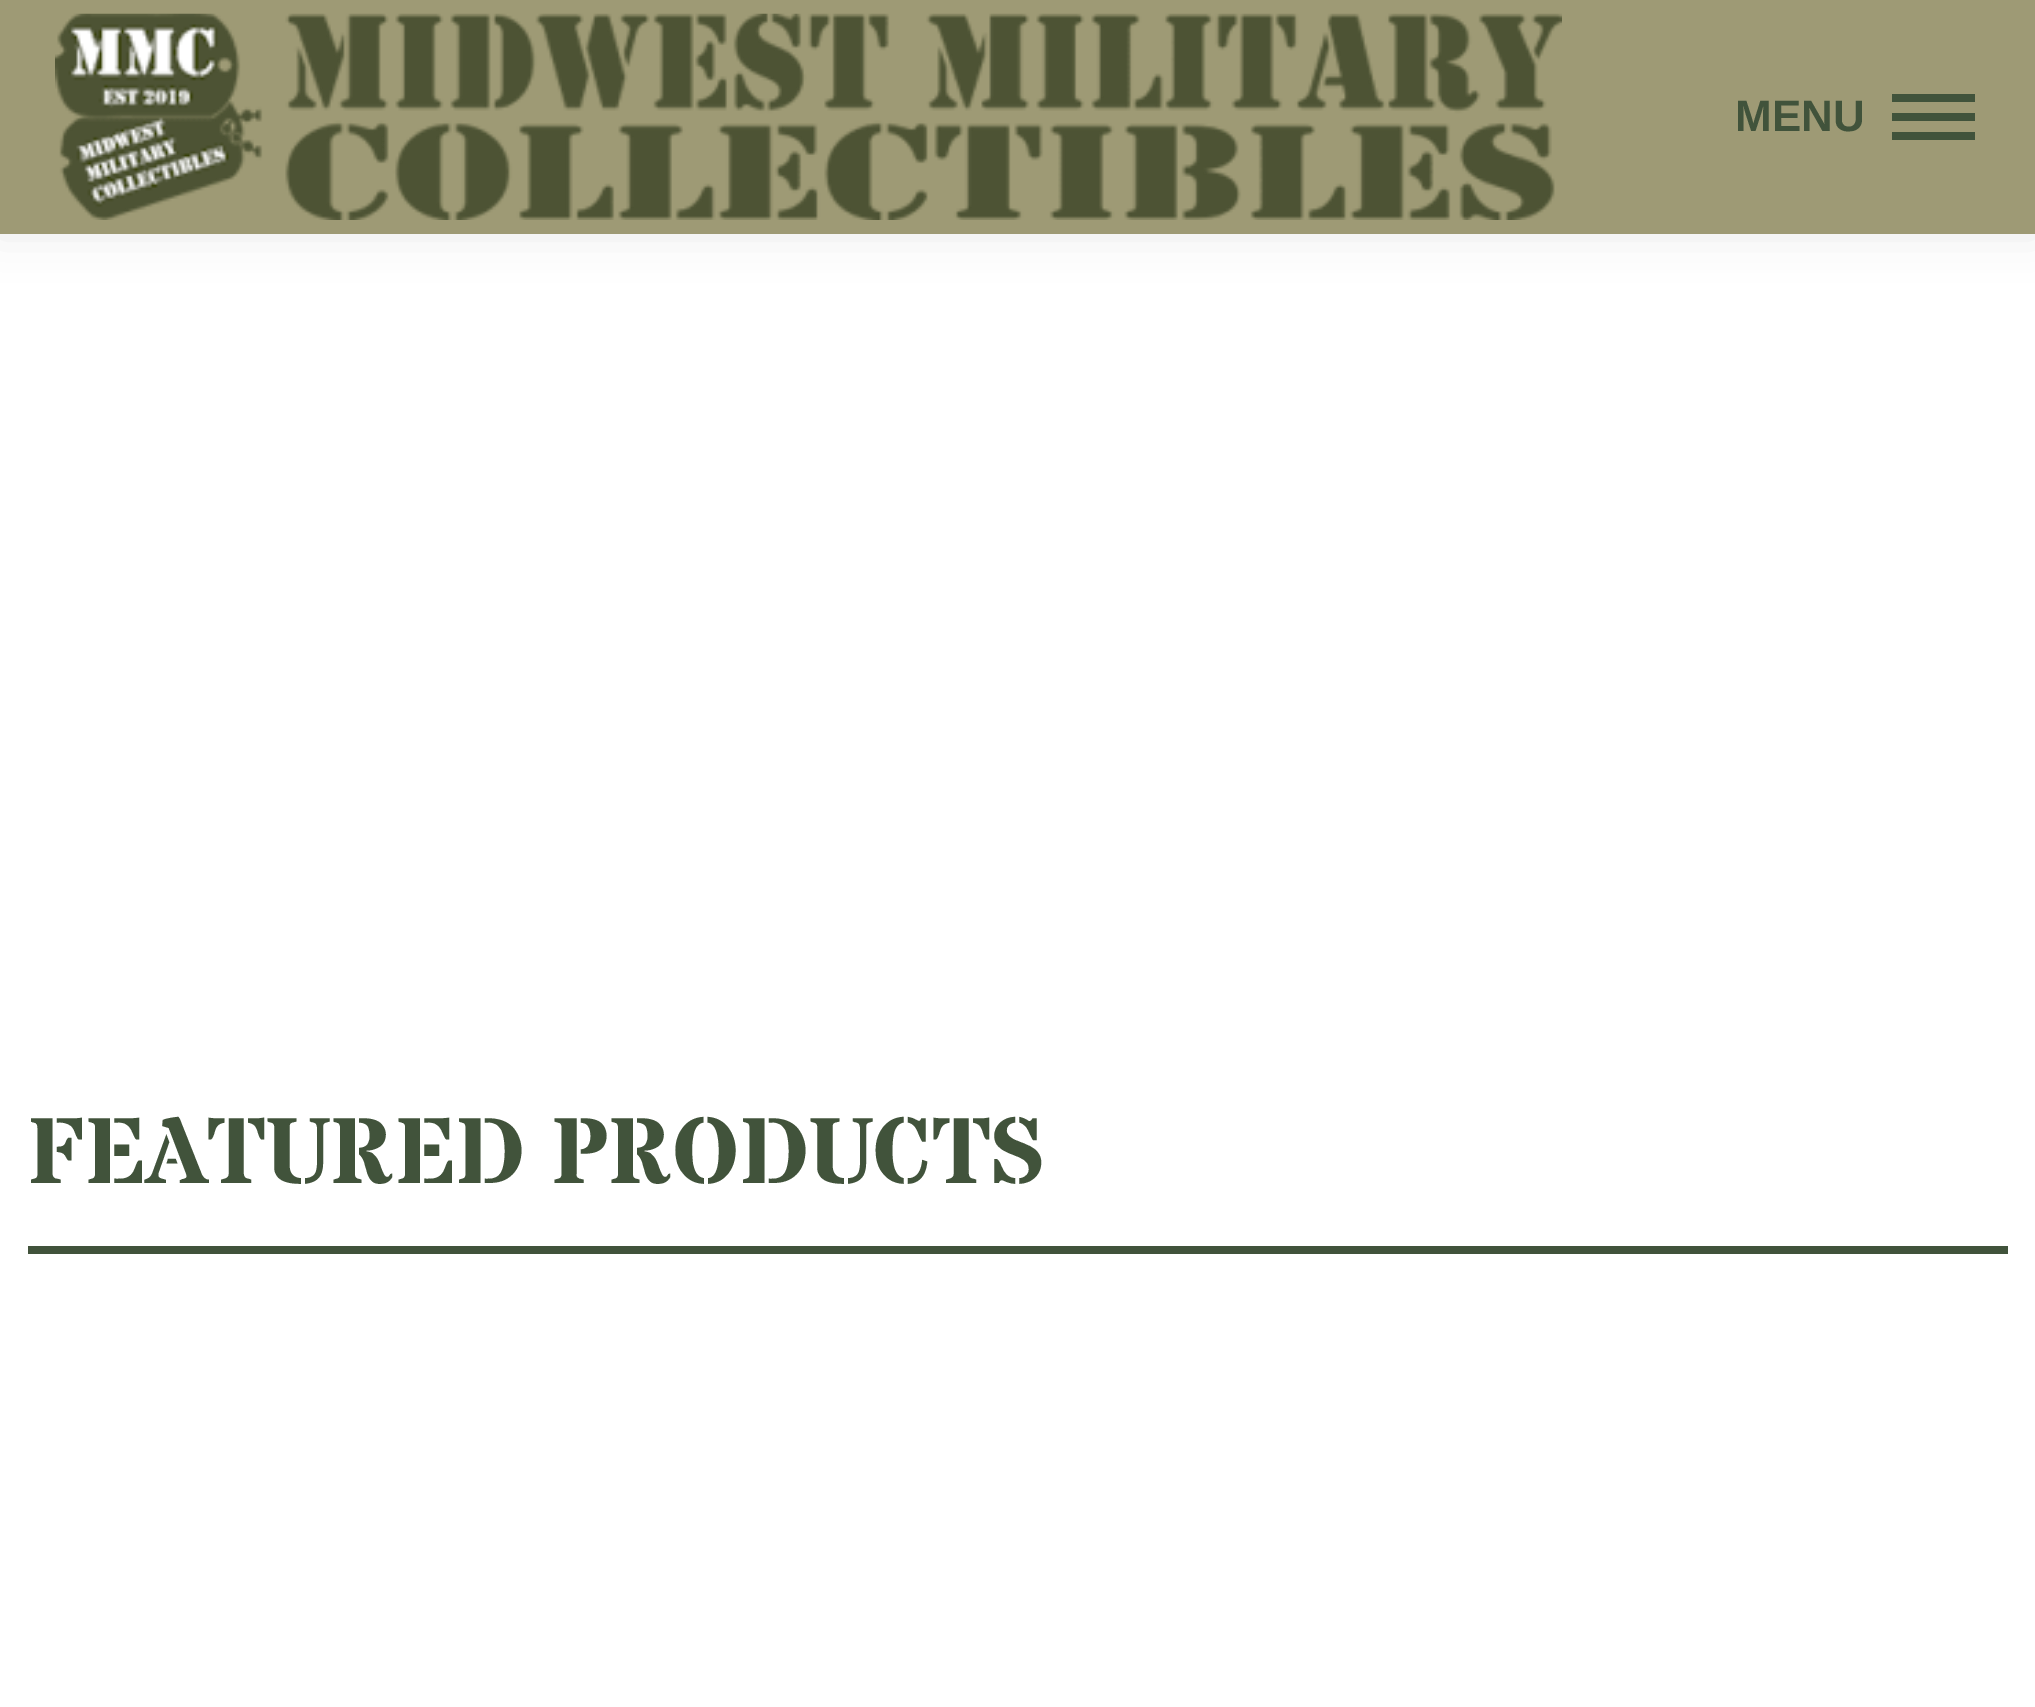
%!PS-Adobe-3.0
%%BoundingBox: 0 0 2035 1707
%%LanguageLevel: 3
%%Pages: 1
%%EndComments
%%BeginProlog
/setink { dup -16 bitshift 255 div exch dup -8 bitshift 255 and 255 div exch 255 and 255 div setrgbcolor } def
/usefont { [ exch dup neg 0 0 3 -1 roll 0 0 ] selectfont } def
/setalpha { dup .setfillconstantalpha .setstrokeconstantalpha } def
/rrect { 5 dict begin { /r /h /w /y /x } { exch def } forall
  x r add y moveto x w add y 2 copy h add r arct x w add y h add x 1 index r arct
  x y h add x y r arct x y 2 copy exch w add exch r arct closepath end } def
/softshadow { 12 dict begin { /a /b /q /h /w /y /x } { exch def } forall gsave /was 0 def
  9 -2 -9 { dup b mul 4 div /e exch def 1 sub .425 mul 2.718 exch exp 1 add a .99 .min exch div /now exch def
    1 1 now sub 1 was sub div sub setalpha /was now def
    w h .min e 2 mul add 0 gt { x e sub y e sub w e 2 mul add h e 2 mul add
      q e add b .6 mul add w h .min 2 div e add .min 0 .max rrect fill } if } for grestore end } def
/drawimage { 5 dict begin { /h /w /y /x /name } { exch def } forall
  gsave x y translate w h scale
  w h 8 [w 0 0 h 0 0] name (r) file false 3 colorimage grestore end } def
%%EndProlog
%%BeginSetup
<< /PageSize [2035 1707] /PageUsesTransparency true >> setpagedevice
%%EndSetup
%%Page: 1 1
0 .pushpdf14devicefilter
0 1707 translate 1 -1 scale
4 setmiterlimit
16#FFFFFF setink
0 0 2035 1707 rectfill
16#000000 setink
-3 -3 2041 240 0 20.5 0.07 softshadow
16#9E9A75 setink
0 0 2035 234 rectfill
(img1.raw) 55 13 1507 207 drawimage
/LiberationSans-Bold 44 usefont
16#41533B setink
1735 131 moveto (MENU) show
[
    [1892 94 83 8 16#41533B]
    [1892 113 83 8 16#41533B]
    [1892 132 83 8 16#41533B]
] { aload pop setink rectfill } forall
/StardosStencil-Bold 93.5 usefont
28 1183 moveto (FEATURED PRODUCTS) show
28 1246 1980 8 rectfill
.poppdf14devicefilter showpage
%%EOF
